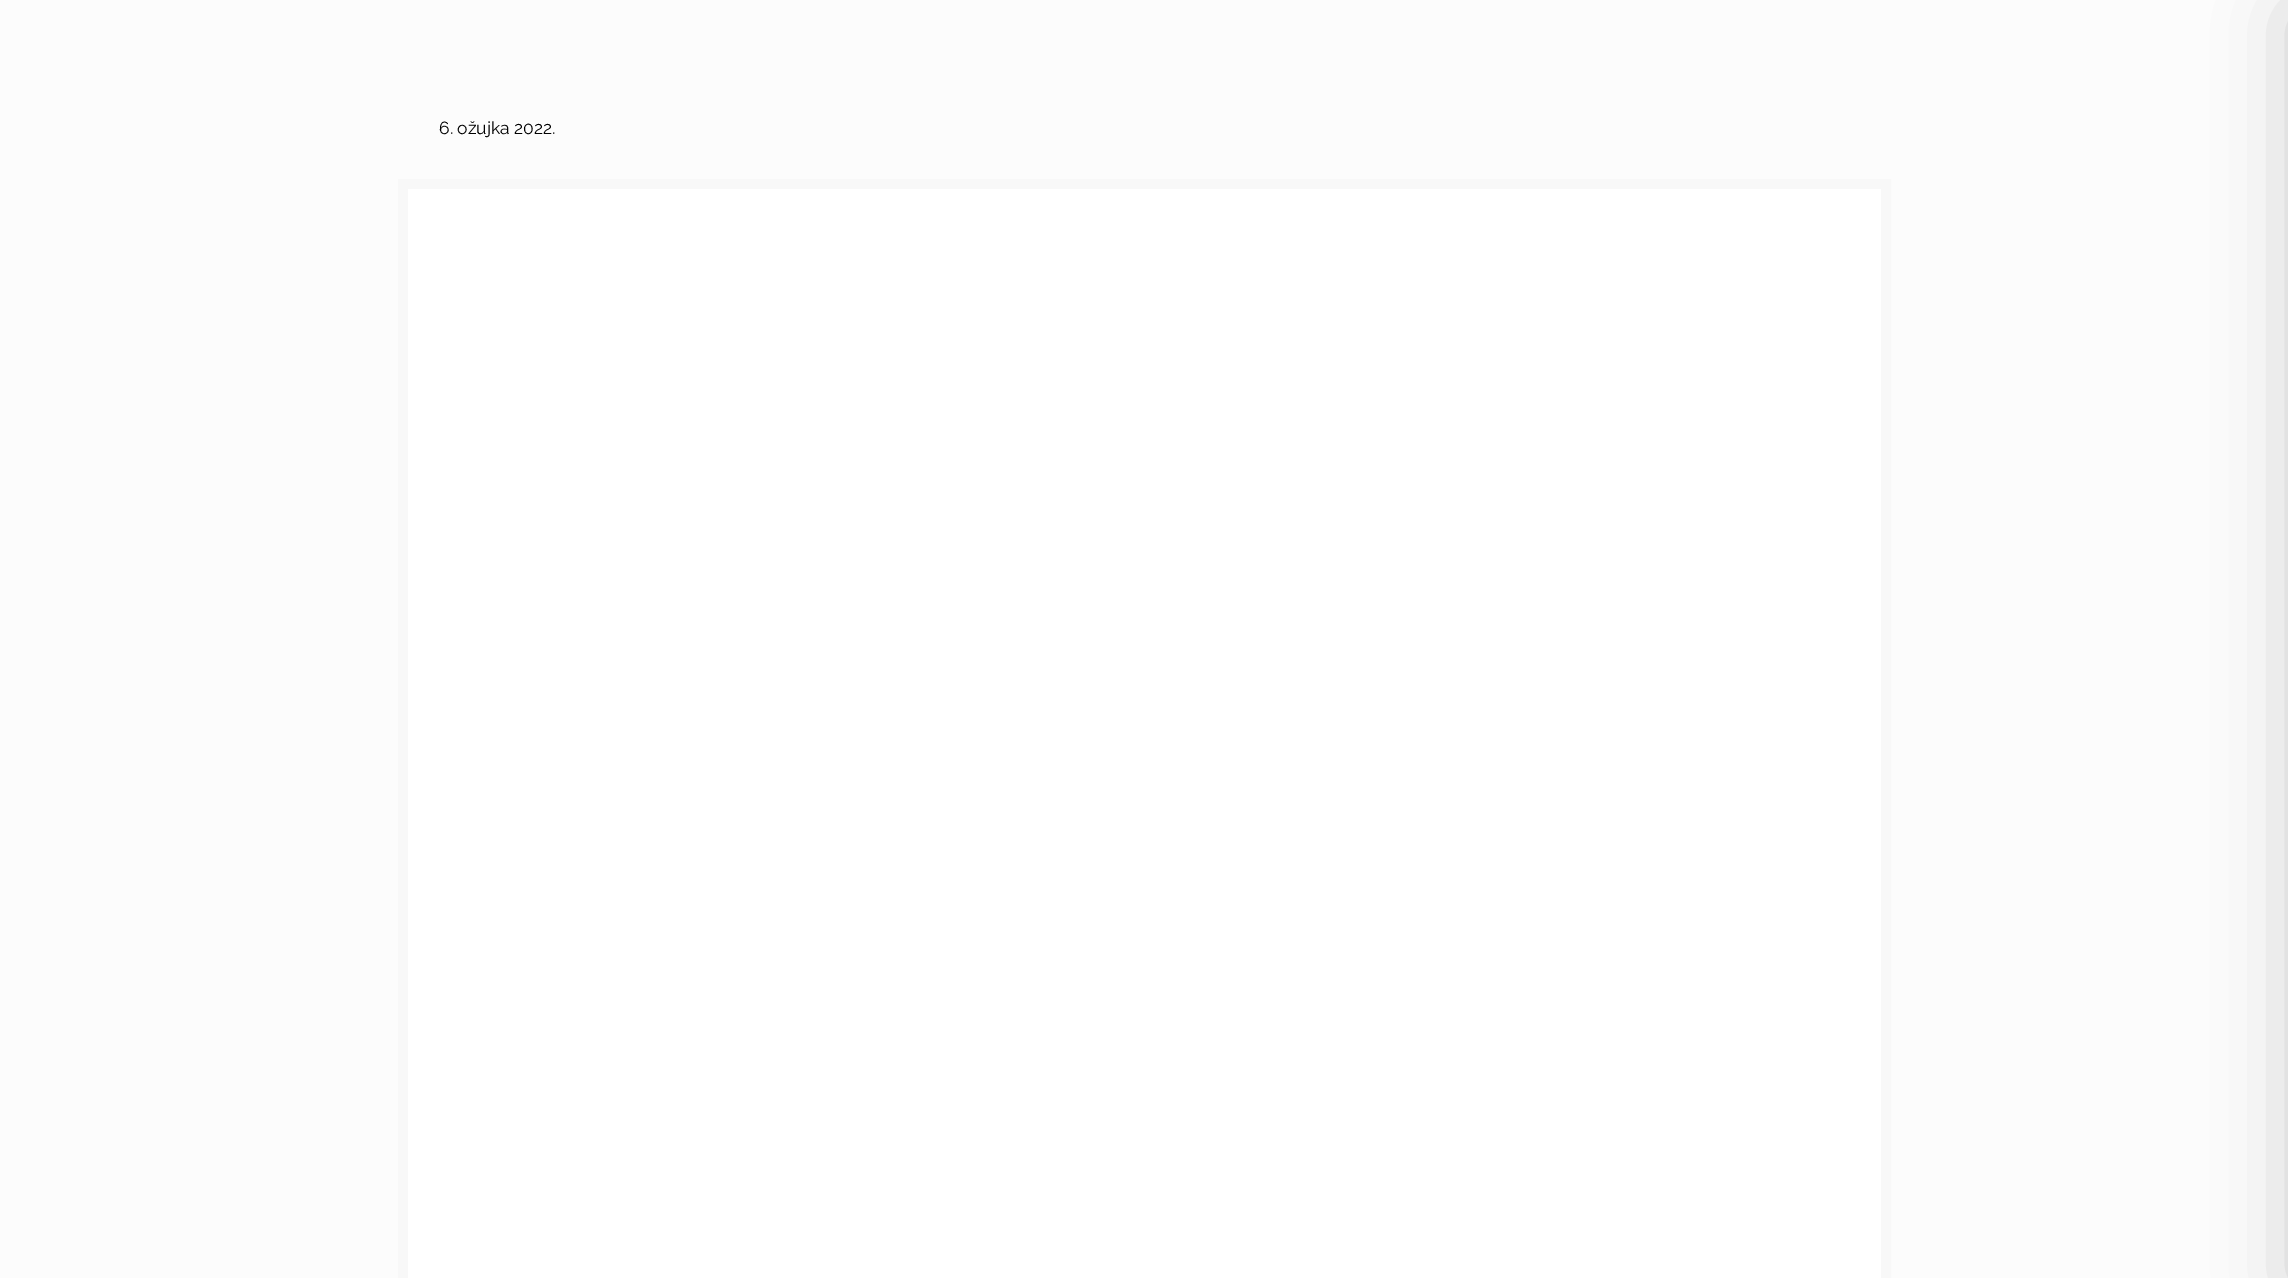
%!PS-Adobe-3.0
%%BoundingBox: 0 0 2288 1278
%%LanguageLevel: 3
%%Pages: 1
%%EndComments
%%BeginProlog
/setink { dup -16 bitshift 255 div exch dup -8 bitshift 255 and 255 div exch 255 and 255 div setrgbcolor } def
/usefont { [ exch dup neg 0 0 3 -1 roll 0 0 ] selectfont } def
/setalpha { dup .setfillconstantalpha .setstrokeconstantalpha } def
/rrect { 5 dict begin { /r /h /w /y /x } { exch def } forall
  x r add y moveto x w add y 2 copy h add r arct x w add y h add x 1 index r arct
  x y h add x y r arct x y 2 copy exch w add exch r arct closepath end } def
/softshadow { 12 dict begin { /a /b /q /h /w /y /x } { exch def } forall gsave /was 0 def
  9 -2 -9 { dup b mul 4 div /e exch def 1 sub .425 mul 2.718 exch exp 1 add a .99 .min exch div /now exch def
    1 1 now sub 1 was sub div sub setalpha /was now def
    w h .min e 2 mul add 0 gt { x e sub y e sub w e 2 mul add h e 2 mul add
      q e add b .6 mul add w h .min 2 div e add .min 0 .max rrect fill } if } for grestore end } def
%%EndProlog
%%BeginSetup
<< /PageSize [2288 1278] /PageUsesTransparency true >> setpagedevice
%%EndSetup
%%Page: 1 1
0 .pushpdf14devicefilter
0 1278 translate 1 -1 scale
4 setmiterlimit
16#FCFCFC setink
0 0 2288 1278 rectfill
/Raleway-Regular 17.5 usefont
16#000000 setink
439 134 moveto (6. ožujka 2022.) show
16#F8F8F8 setink
10 setlinewidth
403 184 1483 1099 rectstroke
16#FFFFFF setink
408 189 1473 1089 rectfill
16#000000 setink
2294 13 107 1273 0 37.5 0.2 softshadow
.poppdf14devicefilter showpage
%%EOF
